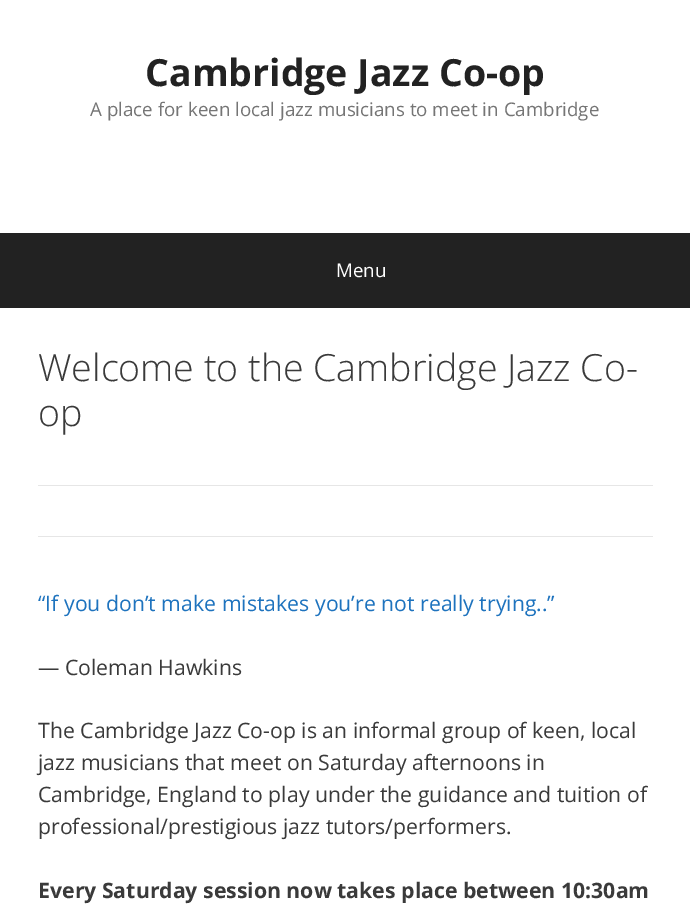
%!PS-Adobe-3.0
%%BoundingBox: 0 0 690 921
%%LanguageLevel: 3
%%Pages: 1
%%EndComments
%%BeginProlog
/setink { dup -16 bitshift 255 div exch dup -8 bitshift 255 and 255 div exch 255 and 255 div setrgbcolor } def
/usefont { [ exch dup neg 0 0 3 -1 roll 0 0 ] selectfont } def
%%EndProlog
%%BeginSetup
<< /PageSize [690 921] >> setpagedevice
%%EndSetup
%%Page: 1 1
0 921 translate 1 -1 scale
4 setmiterlimit
16#222222 setink
0 0 690 921 rectfill
16#FFFFFF setink
0 0 690 233 rectfill
/OpenSans-Bold 37.5 usefont
16#222222 setink
145 86 moveto (Cambridge Jazz Co-op) show
/OpenSans-Regular 18.75 usefont
16#757575 setink
90 116 moveto (A place for keen local jazz musicians to meet in Cambridge) show
16#FFFFFF setink
336 277 moveto (Menu) show
0 308 690 613 rectfill
/OpenSans-Light 37.5 usefont
16#3A3A3A setink
38 381 moveto (Welcome to the Cambridge Jazz Co-) show
38 426 moveto (op) show
16#E6E6E6 setink
38 485 615 1 rectfill
38 536 615 1 rectfill
/OpenSans-Regular 21.25 usefont
16#1E73BE setink
38 611 moveto (“If you don’t make mistakes you’re not really trying..”) show
16#3A3A3A setink
[
    [(— Coleman Hawkins) 38 675]
    [(The Cambridge Jazz Co-op is an informal group of keen, local) 38 738]
    [(jazz musicians that meet on Saturday afternoons in) 38 770]
    [(Cambridge, England to play under the guidance and tuition of) 38 802]
    [(professional/prestigious jazz tutors/performers.) 38 834]
] { aload pop moveto show } forall
/OpenSans-Bold 21.25 usefont
38 898 moveto (Every Saturday session now takes place between 10:30am) show
showpage
%%EOF
